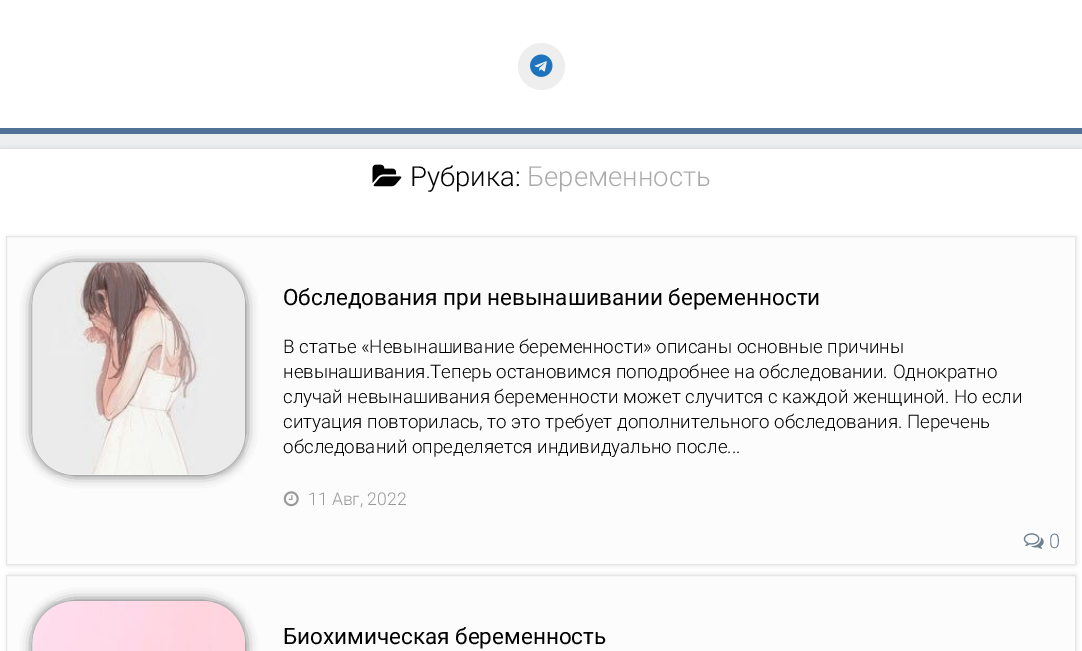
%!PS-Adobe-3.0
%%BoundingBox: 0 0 1082 651
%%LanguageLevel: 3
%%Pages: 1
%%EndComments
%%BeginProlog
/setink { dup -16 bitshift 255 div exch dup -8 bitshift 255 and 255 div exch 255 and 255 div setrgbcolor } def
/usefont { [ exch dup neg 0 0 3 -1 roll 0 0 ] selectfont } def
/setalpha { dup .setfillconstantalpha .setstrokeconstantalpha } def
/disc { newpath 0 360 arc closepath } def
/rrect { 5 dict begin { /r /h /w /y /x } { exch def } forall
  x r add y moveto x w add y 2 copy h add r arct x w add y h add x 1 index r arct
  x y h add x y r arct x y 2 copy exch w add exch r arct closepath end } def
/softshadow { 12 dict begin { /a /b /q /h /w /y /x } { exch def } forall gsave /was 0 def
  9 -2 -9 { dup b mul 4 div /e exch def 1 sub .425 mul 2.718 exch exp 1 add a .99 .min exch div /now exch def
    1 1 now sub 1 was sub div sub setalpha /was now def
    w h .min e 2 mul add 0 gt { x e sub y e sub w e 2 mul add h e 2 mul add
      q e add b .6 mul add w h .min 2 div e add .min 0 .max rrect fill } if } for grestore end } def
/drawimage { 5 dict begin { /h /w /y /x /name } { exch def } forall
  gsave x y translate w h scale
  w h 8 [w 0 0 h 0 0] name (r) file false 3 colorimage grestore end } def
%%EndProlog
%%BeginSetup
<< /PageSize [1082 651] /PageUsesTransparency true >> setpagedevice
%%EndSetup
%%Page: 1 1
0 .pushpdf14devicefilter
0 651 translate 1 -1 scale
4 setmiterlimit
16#EDEEF0 setink
0 0 1082 651 rectfill
16#FFFFFF setink
0 0 1082 128 rectfill
16#507299 setink
0 128 1082 6 rectfill
16#EEEEEE setink
541.5 66.5 23.5 disc fill
(img1.raw) 530 54 23 23 drawimage
16#000000 setink
1 150 1080 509 0 2.5 0.2 softshadow
16#FFFFFF setink
0 149 1082 502 rectfill
(img2.raw) 372 164 30 23 drawimage
/Roboto-Light 27.5 usefont
16#000000 setink
410 186 moveto (Рубрика:) show
16#AAAAAA setink
527 186 moveto (Беременность) show
16#000000 setink
8 238 1067 326 0 2.5 0.2 softshadow
16#FCFCFC setink
6.5 236.5 moveto 1075.5 236.5 lineto 1075.5 564.5 lineto 6.5 564.5 lineto closepath gsave fill grestore
16#E6E6E6 setink
stroke
16#555555 setink
33 263 212 212 43 6 1 softshadow
(img3.raw) 32 262 213 213 drawimage
/Roboto-Regular 22.5 usefont
16#000000 setink
283 305 moveto (Обследования при невынашивании беременности) show
/Roboto-Light 18.75 usefont
[
    [(В статье «Невынашивание беременности» описаны основные причины) 283 353]
    [(невынашивания.Теперь остановимся поподробнее на обследовании. Однократно) 283 378]
    [(случай невынашивания беременности может случится с каждой женщиной. Но если) 283 403]
    [(ситуация повторилась, то это требует дополнительного обследования. Перечень) 283 428]
    [(обследований определяется индивидуально после...) 283 453]
] { aload pop moveto show } forall
(img4.raw) 283 491 16 16 drawimage
/Roboto-Light 17.5 usefont
16#999999 setink
308 505 moveto (11 Авг, 2022) show
(img5.raw) 1023 533 21 16 drawimage
/Roboto-Light 20 usefont
16#6E7F90 setink
1049 548 moveto (0) show
16#000000 setink
8 576 1067 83 0 2.5 0.2 softshadow
16#FCFCFC setink
6.5 575.5 moveto 1075.5 575.5 lineto 1075.5 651.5 lineto 6.5 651.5 lineto closepath gsave fill grestore
16#E6E6E6 setink
stroke
16#555555 setink
33 601 212 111 43 6 1 softshadow
(img6.raw) 32 601 213 50 drawimage
/Roboto-Regular 22.5 usefont
16#000000 setink
283 644 moveto (Биохимическая беременность) show
.poppdf14devicefilter showpage
%%EOF
